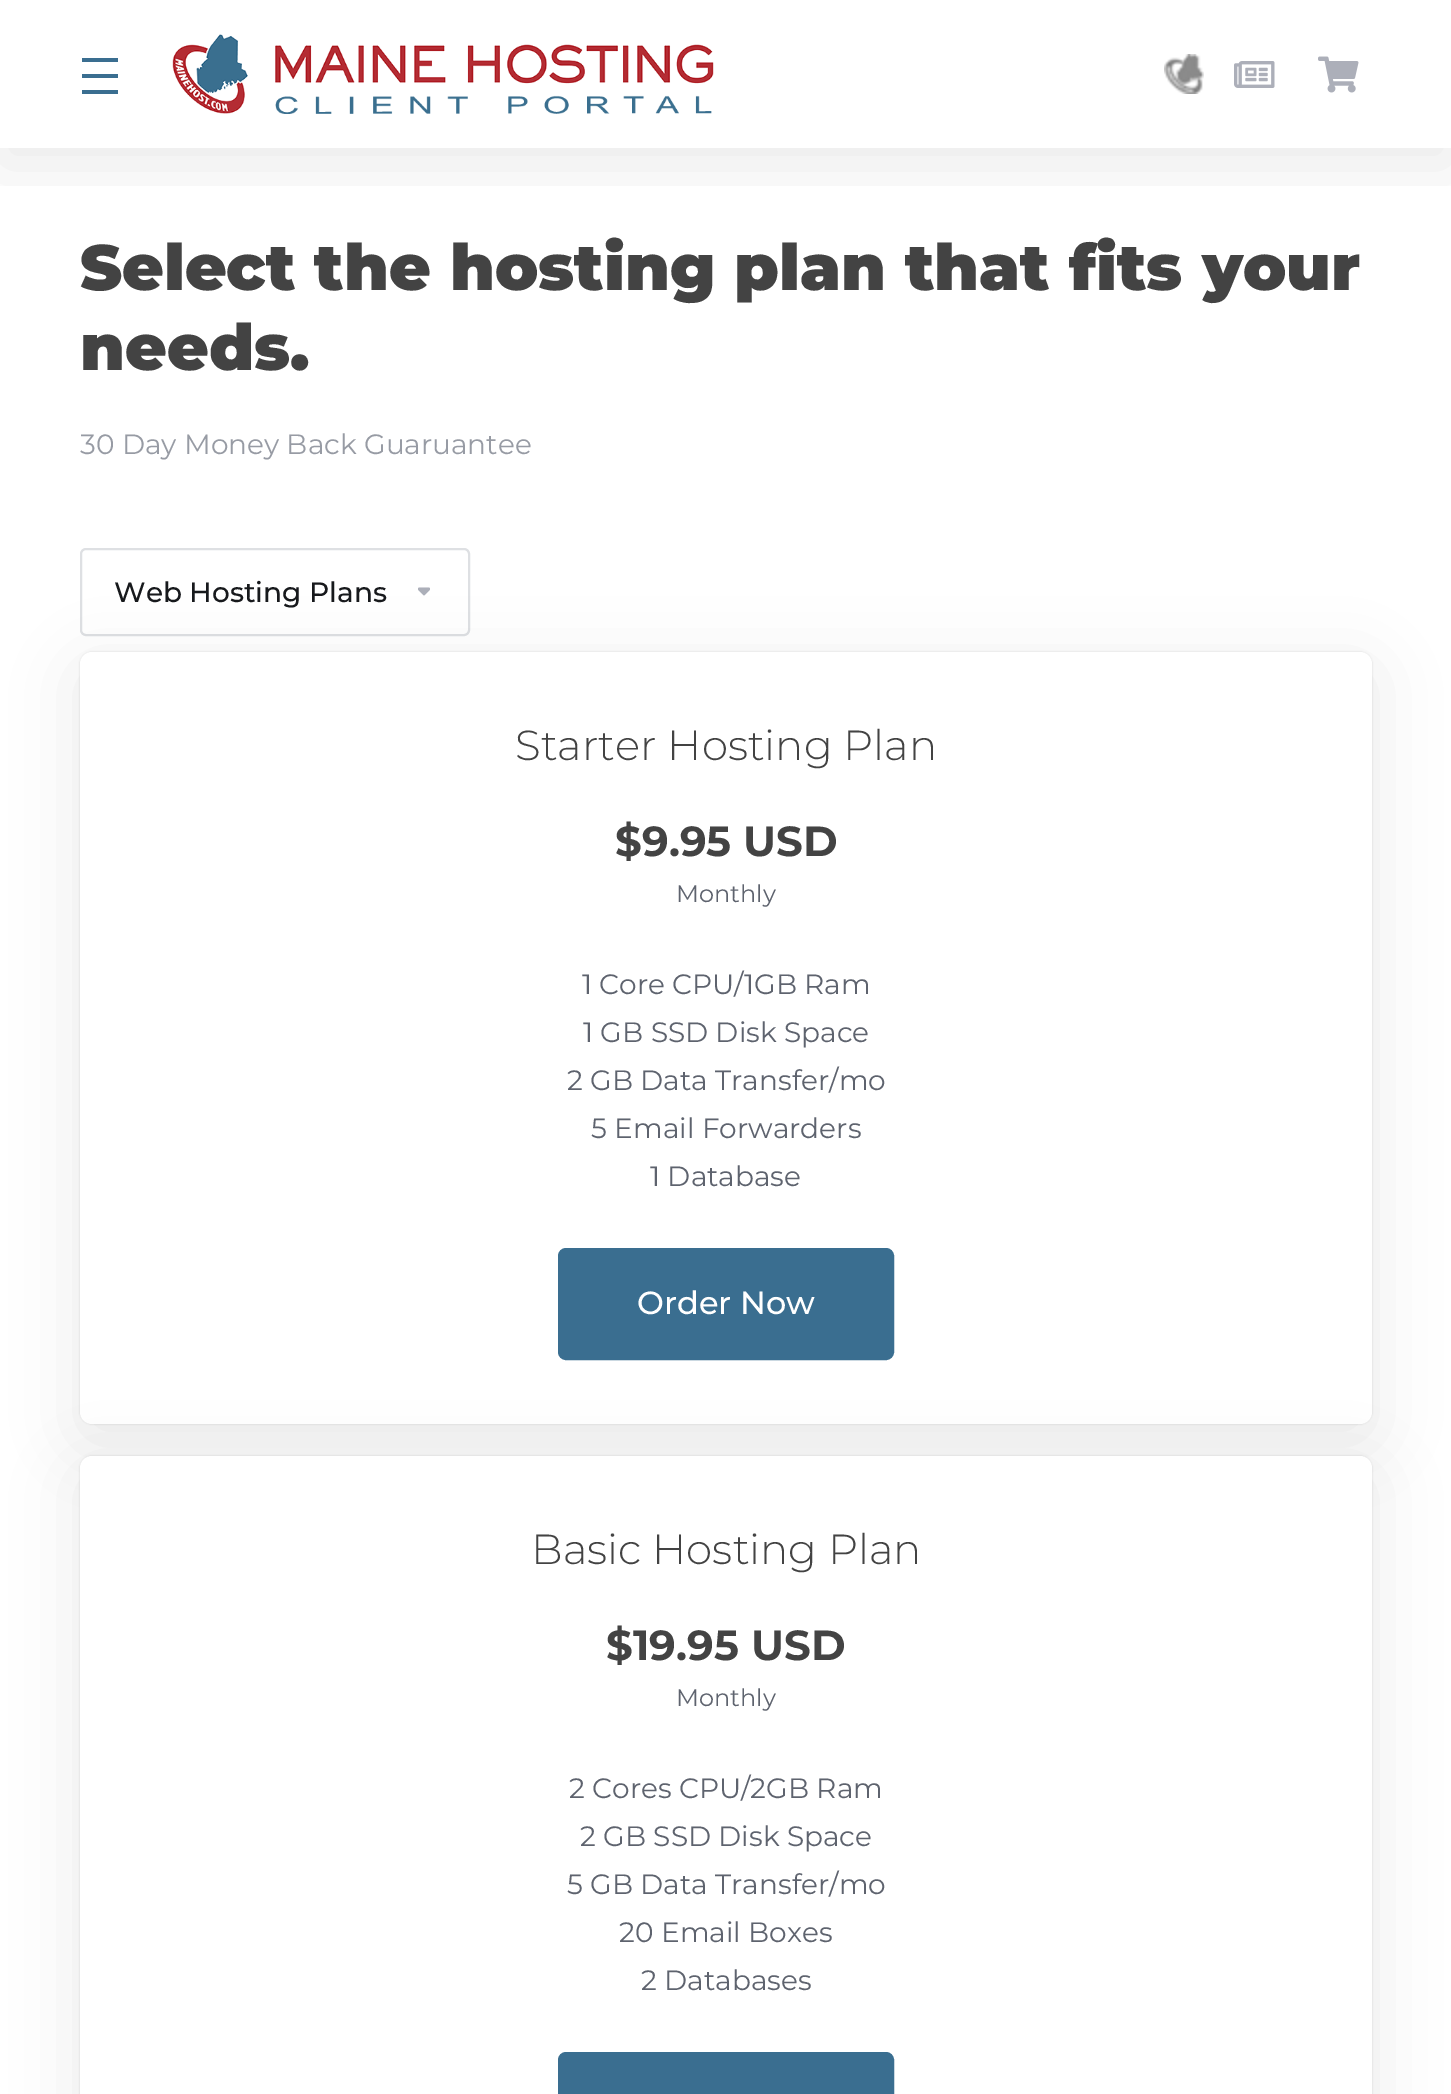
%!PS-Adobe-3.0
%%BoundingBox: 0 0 1451 2094
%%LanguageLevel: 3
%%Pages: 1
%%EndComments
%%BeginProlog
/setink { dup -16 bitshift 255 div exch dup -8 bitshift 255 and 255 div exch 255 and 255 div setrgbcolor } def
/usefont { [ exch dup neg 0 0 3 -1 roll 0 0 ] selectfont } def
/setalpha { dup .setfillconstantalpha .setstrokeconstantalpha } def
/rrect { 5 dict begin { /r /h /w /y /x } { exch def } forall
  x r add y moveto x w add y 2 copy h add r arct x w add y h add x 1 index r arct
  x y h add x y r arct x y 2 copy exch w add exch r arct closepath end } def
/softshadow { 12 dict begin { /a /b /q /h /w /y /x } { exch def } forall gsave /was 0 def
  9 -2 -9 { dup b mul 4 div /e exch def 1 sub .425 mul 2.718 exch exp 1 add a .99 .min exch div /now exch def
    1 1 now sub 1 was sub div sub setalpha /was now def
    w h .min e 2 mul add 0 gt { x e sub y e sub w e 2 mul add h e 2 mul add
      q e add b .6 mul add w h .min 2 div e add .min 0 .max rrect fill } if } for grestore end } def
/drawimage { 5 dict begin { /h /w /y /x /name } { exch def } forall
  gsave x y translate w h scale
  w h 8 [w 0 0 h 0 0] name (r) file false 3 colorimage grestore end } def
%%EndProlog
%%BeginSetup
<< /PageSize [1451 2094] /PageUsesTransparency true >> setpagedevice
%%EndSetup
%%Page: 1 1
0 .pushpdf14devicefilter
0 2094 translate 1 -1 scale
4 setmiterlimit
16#FFFFFF setink
0 0 1451 2094 rectfill
gsave
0 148 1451 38 rectclip
16#000000 setink
0 16 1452 148 0 32 0.08 softshadow
grestore
[
    [82 58 36 4 16#3A6E90]
    [82 74 36 4 16#3A6E90]
    [82 90 36 4 16#3A6E90]
] { aload pop setink rectfill } forall
(img1.raw) 172 34 542 80 drawimage
(img2.raw) 1164 54 40 40 drawimage
(img3.raw) 1234 61 41 27 drawimage
(img4.raw) 1318 56 41 37 drawimage
/Montserrat-Black 64 usefont
16#434343 setink
80 290 moveto (Select the hosting plan that fits your) show
80 370 moveto (needs.) show
/Montserrat-Regular 28 usefont
16#979BA4 setink
80 454 moveto (30 Day Money Back Guaruantee) show
16#DEE0E3 setink
2 setlinewidth
81 549 388 86 5 rrect stroke
/Montserrat-Medium 28 usefont
16#17191C setink
114 602 moveto (Web Hosting Plans) show
(img5.raw) 418 587 12 9 drawimage
16#000000 setink
80 668 1292 772 12 32 0.08 softshadow
80 652 1292 772 12 1 0.12 softshadow
16#FFFFFF setink
80 652 1292 772 12 rrect fill
/Montserrat-Light 42 usefont
16#434343 setink
515 760 moveto (Starter Hosting Plan) show
/Montserrat-Bold 42 usefont
615 856 moveto ($9.95 USD) show
/Montserrat-Regular 24 usefont
16#5E636E setink
676 902 moveto (Monthly) show
/Montserrat-Regular 28 usefont
[
    [(1 Core CPU/1GB Ram) 582 994]
    [(1 GB SSD Disk Space) 583 1042]
    [(2 GB Data Transfer/mo) 567 1090]
    [(5 Email Forwarders) 591 1138]
    [(1 Database) 650 1186]
] { aload pop moveto show } forall
16#3A6E90 setink
559 1249 334 110 7 rrect gsave fill grestore
stroke
/Montserrat-Medium 32 usefont
16#FFFFFF setink
637 1314 moveto (Order Now) show
16#000000 setink
80 1472 1292 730 12 32 0.08 softshadow
80 1456 1292 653 12 1 0.12 softshadow
16#FFFFFF setink
80 1456 1292 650 12 rrect fill
/Montserrat-Light 42 usefont
16#434343 setink
531 1564 moveto (Basic Hosting Plan) show
/Montserrat-Bold 42 usefont
606 1660 moveto ($19.95 USD) show
/Montserrat-Regular 24 usefont
16#5E636E setink
676 1706 moveto (Monthly) show
/Montserrat-Regular 28 usefont
[
    [(2 Cores CPU/2GB Ram) 569 1798]
    [(2 GB SSD Disk Space) 580 1846]
    [(5 GB Data Transfer/mo) 567 1894]
    [(20 Email Boxes) 619 1942]
    [(2 Databases) 641 1990]
] { aload pop moveto show } forall
16#3A6E90 setink
559 2053 334 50 7 rrect gsave fill grestore
stroke
.poppdf14devicefilter showpage
%%EOF
